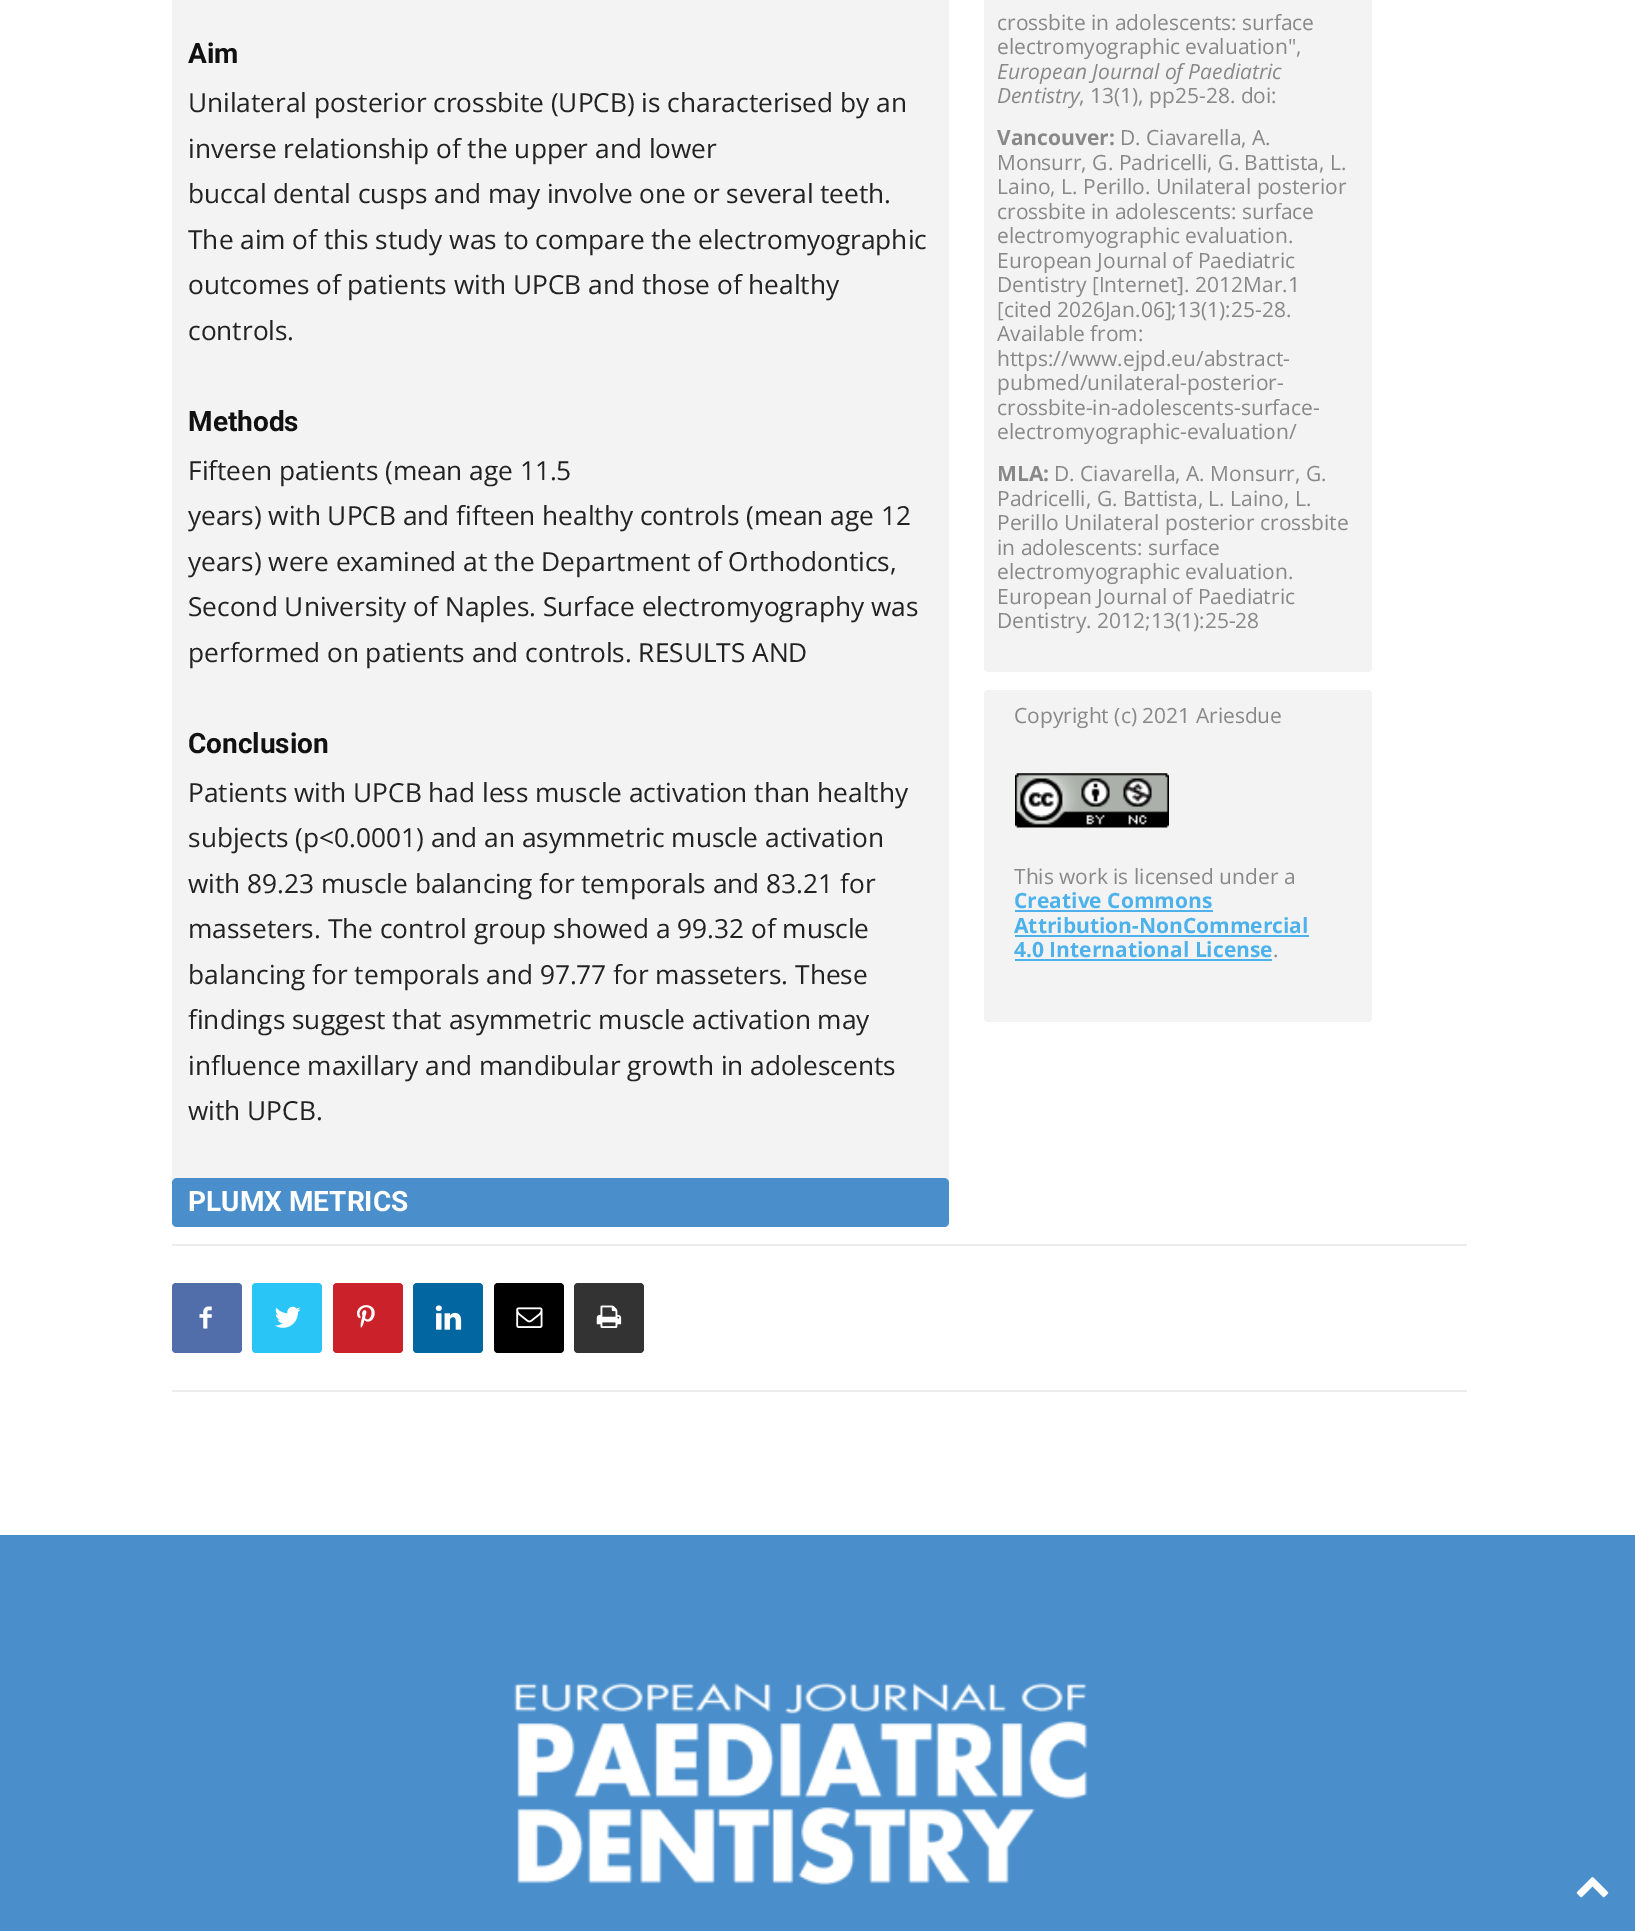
%!PS-Adobe-3.0
%%BoundingBox: 0 0 1635 1931
%%LanguageLevel: 3
%%Pages: 1
%%EndComments
%%BeginProlog
/setink { dup -16 bitshift 255 div exch dup -8 bitshift 255 and 255 div exch 255 and 255 div setrgbcolor } def
/usefont { [ exch dup neg 0 0 3 -1 roll 0 0 ] selectfont } def
/rrect { 5 dict begin { /r /h /w /y /x } { exch def } forall
  x r add y moveto x w add y 2 copy h add r arct x w add y h add x 1 index r arct
  x y h add x y r arct x y 2 copy exch w add exch r arct closepath end } def
/drawimage { 5 dict begin { /h /w /y /x /name } { exch def } forall
  gsave x y translate w h scale
  w h 8 [w 0 0 h 0 0] name (r) file false 3 colorimage grestore end } def
%%EndProlog
%%BeginSetup
<< /PageSize [1635 1931] >> setpagedevice
%%EndSetup
%%Page: 1 1
0 1931 translate 1 -1 scale
4 setmiterlimit
16#FFFFFF setink
0 0 1635 1931 rectfill
16#F3F3F3 setink
172 0 777 1227 rectfill
/Roboto-Bold 28 usefont
16#111111 setink
188 63 moveto (Aim) show
/OpenSans-Regular 26.25 usefont
16#222222 setink
[
    [(Unilateral posterior crossbite \(UPCB\) is characterised by an) 188 112]
    [(inverse relationship of the upper and lower) 188 158]
    [(buccal dental cusps and may involve one or several teeth.) 188 203]
    [(The aim of this study was to compare the electromyographic) 188 249]
    [(outcomes of patients with UPCB and those of healthy) 188 294]
    [(controls.) 188 340]
] { aload pop moveto show } forall
/Roboto-Bold 28 usefont
16#111111 setink
188 431 moveto (Methods) show
/OpenSans-Regular 26.25 usefont
16#222222 setink
[
    [(Fifteen patients \(mean age 11.5) 188 480]
    [(years\) with UPCB and fifteen healthy controls \(mean age 12) 188 525]
    [(years\) were examined at the Department of Orthodontics,) 188 571]
    [(Second University of Naples. Surface electromyography was) 188 616]
    [(performed on patients and controls. RESULTS AND) 188 662]
] { aload pop moveto show } forall
/Roboto-Bold 28 usefont
16#111111 setink
188 753 moveto (Conclusion) show
/OpenSans-Regular 26.25 usefont
16#222222 setink
[
    [(Patients with UPCB had less muscle activation than healthy) 188 802]
    [(subjects \(p<0.0001\) and an asymmetric muscle activation) 188 847]
    [(with 89.23 muscle balancing for temporals and 83.21 for) 188 893]
    [(masseters. The control group showed a 99.32 of muscle) 188 938]
    [(balancing for temporals and 97.77 for masseters. These) 188 984]
    [(findings suggest that asymmetric muscle activation may) 188 1029]
    [(influence maxillary and mandibular growth in adolescents) 188 1075]
    [(with UPCB.) 188 1120]
] { aload pop moveto show } forall
16#4A8FCC setink
172 1178 777 49 5 rrect fill
/Roboto-Bold 28 usefont
16#FFFFFF setink
188 1211 moveto (PLUMX METRICS) show
16#F3F3F3 setink
984 -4 388 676 4 rrect fill
/OpenSans-Regular 21 usefont
16#888888 setink
997 30 moveto (crossbite in adolescents: surface) show
997 54 moveto (electromyographic evaluation",) show
/OpenSans-Italic 21 usefont
997 79 moveto (European Journal of Paediatric) show
997 103 moveto (Dentistry) show
/OpenSans-Regular 21 usefont
1079 103 moveto (, 13\(1\), pp25-28. doi:) show
/OpenSans-Bold 21 usefont
997 145 moveto (Vancouver:) show
/OpenSans-Regular 21 usefont
[
    [(D. Ciavarella, A.) 1120 145]
    [(Monsurr, G. Padricelli, G. Battista, L.) 997 170]
    [(Laino, L. Perillo. Unilateral posterior) 997 194]
    [(crossbite in adolescents: surface) 997 219]
    [(electromyographic evaluation.) 997 243]
    [(European Journal of Paediatric) 997 268]
    [(Dentistry [Internet]. 2012Mar.1) 997 292]
    [([cited 2026Jan.06];13\(1\):25-28.) 997 317]
    [(Available from:) 997 341]
    [(https://www.ejpd.eu/abstract-) 997 366]
    [(pubmed/unilateral-posterior-) 997 390]
    [(crossbite-in-adolescents-surface-) 997 415]
    [(electromyographic-evaluation/) 997 439]
] { aload pop moveto show } forall
/OpenSans-Bold 21 usefont
997 481 moveto (MLA:) show
/OpenSans-Regular 21 usefont
[
    [(D. Ciavarella, A. Monsurr, G.) 1054 481]
    [(Padricelli, G. Battista, L. Laino, L.) 997 506]
    [(Perillo Unilateral posterior crossbite) 997 530]
    [(in adolescents: surface) 997 555]
    [(electromyographic evaluation.) 997 579]
    [(European Journal of Paediatric) 997 604]
    [(Dentistry. 2012;13\(1\):25-28) 997 628]
] { aload pop moveto show } forall
16#F3F3F3 setink
984 690 388 332 4 rrect fill
16#888888 setink
1014 723 moveto (Copyright \(c\) 2021 Ariesdue) show
(img1.raw) 1015 773 154 55 drawimage
1014 884 moveto (This work is licensed under a) show
/OpenSans-Bold 21 usefont
16#4DB2EC setink
1014 908 moveto (Creative Commons) show
1015 910 198 2 rectfill
1014 933 moveto (Attribution-NonCommercial) show
1015 935 294 2 rectfill
1014 957 moveto (4.0 International License) show
1015 959 257 2 rectfill
/OpenSans-Regular 21 usefont
16#888888 setink
1273 957 moveto (.) show
16#EDEDED setink
172 1244 1295 2 rectfill
172 1390 1295 2 rectfill
16#516EAB setink
172 1283 70 70 4 rrect fill
(img2.raw) 199 1306 13 23 drawimage
16#29C5F6 setink
252 1283 70 70 4 rrect fill
(img3.raw) 275 1306 26 22 drawimage
16#CA212A setink
333 1283 70 70 4 rrect fill
(img4.raw) 357 1305 18 23 drawimage
16#0266A0 setink
413 1283 70 70 4 rrect fill
(img5.raw) 435 1305 27 25 drawimage
16#000000 setink
494 1283 70 70 4 rrect fill
(img6.raw) 516 1307 27 21 drawimage
16#333333 setink
574 1283 70 70 4 rrect fill
(img7.raw) 596 1305 26 23 drawimage
16#4A8FCC setink
0 1535 1635 396 rectfill
(img8.raw) 514 1683 574 202 drawimage
(img9.raw) 1576 1877 33 21 drawimage
showpage
%%EOF
